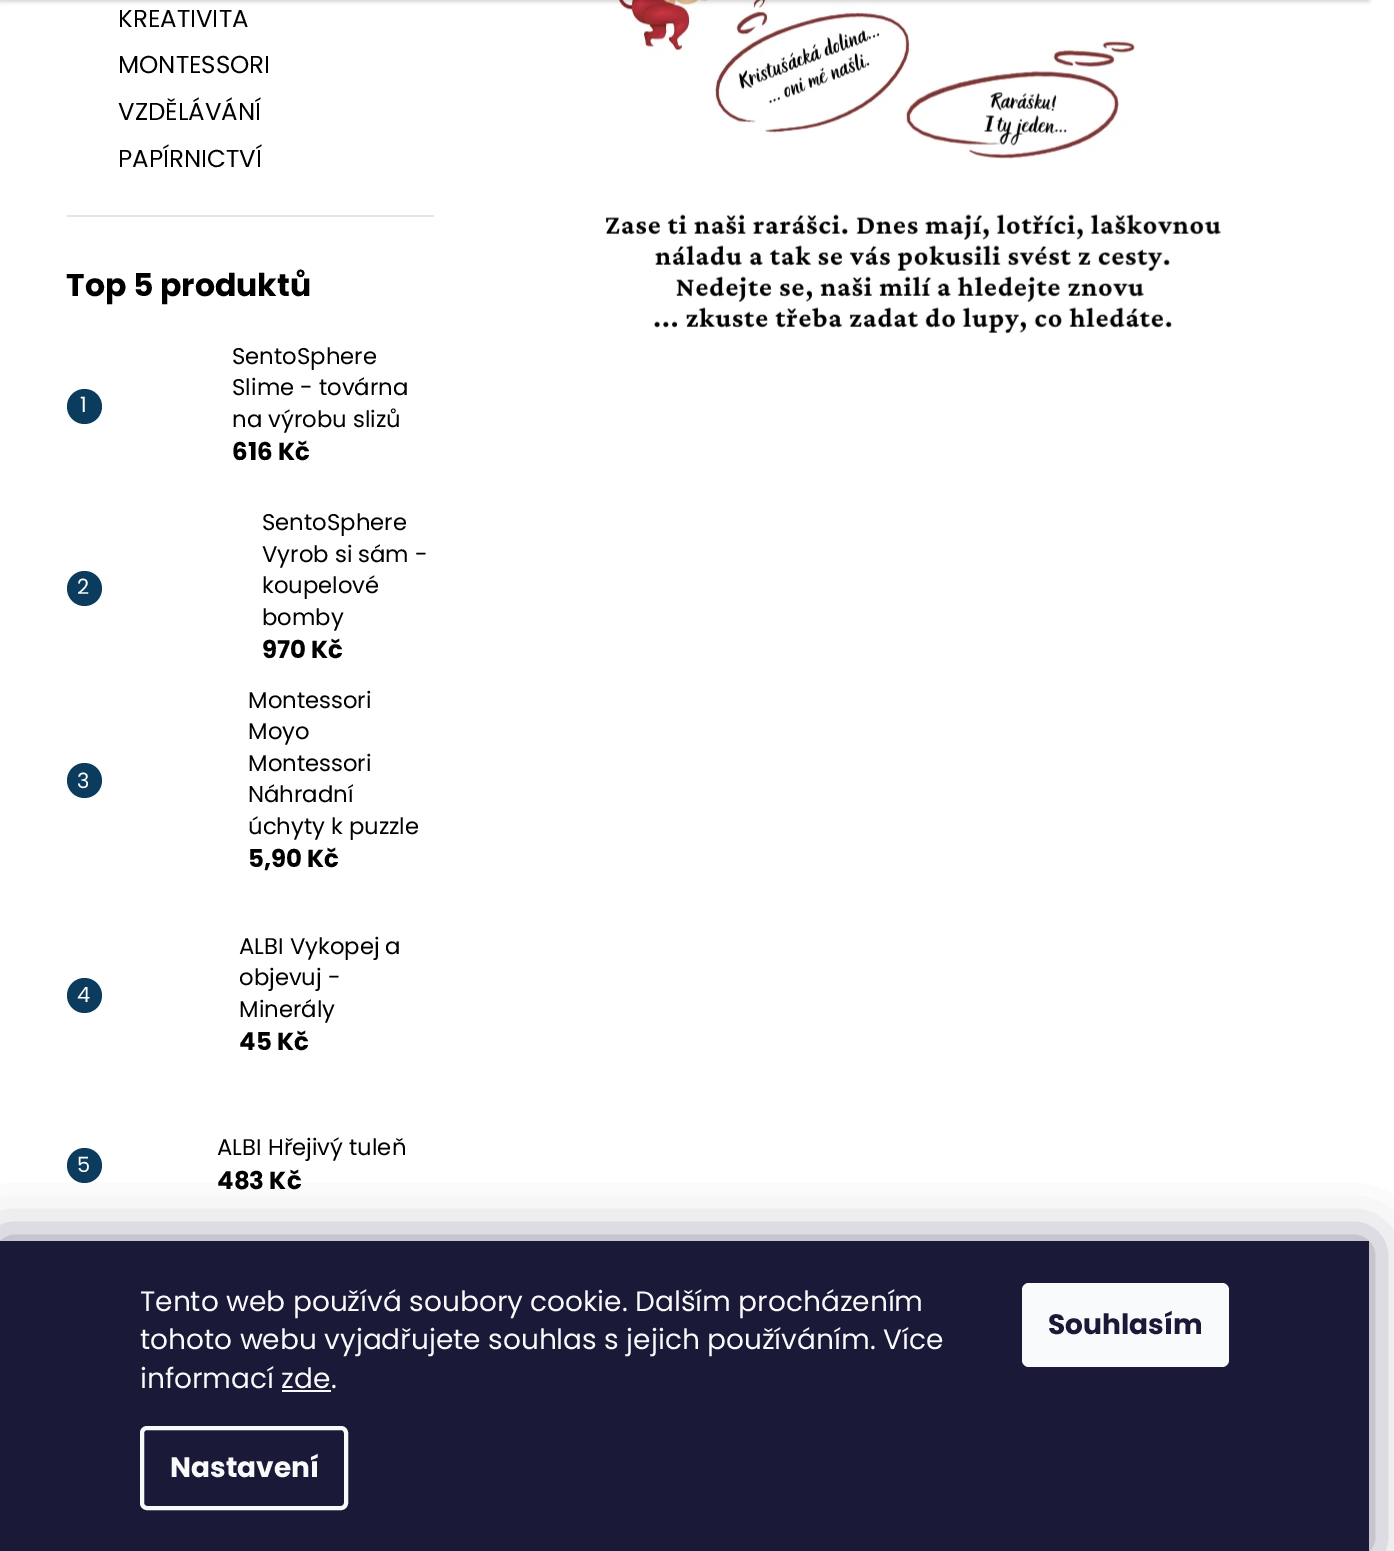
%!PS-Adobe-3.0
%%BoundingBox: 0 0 1394 1551
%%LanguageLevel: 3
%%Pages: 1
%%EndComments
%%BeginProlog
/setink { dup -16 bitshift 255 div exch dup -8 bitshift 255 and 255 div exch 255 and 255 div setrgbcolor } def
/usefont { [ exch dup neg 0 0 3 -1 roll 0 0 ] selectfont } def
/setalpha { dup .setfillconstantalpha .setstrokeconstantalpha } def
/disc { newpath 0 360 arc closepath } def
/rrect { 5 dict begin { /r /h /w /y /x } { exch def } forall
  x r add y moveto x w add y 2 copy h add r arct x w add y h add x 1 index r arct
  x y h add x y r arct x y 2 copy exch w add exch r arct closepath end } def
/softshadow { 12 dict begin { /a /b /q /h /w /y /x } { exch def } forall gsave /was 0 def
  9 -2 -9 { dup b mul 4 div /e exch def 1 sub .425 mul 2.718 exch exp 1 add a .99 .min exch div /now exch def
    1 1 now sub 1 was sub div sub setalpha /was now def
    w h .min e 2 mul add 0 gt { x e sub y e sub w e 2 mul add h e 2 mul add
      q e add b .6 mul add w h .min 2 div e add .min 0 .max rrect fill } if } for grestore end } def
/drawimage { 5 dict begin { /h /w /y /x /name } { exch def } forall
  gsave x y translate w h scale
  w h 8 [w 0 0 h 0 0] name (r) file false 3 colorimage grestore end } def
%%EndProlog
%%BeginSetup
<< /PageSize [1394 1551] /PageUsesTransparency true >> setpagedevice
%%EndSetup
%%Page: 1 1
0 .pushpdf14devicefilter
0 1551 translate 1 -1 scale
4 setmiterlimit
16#FFFFFF setink
0 0 1394 1551 rectfill
(img1.raw) 606 0 615 334 drawimage
16#000000 setink
0 -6 1369 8 0 2 0.16 softshadow
/Poppins-Regular 24.5 usefont
[
    [(KREATIVITA) 118 27]
    [(MONTESSORI) 118 73]
    [(VZDĚLÁVÁNÍ) 118 120]
    [(PAPÍRNICTVÍ) 118 167]
] { aload pop moveto show } forall
16#E6E6E6 setink
67 215 367 2 rectfill
/Poppins-Bold 31.5 usefont
16#000000 setink
66 296 moveto (Top 5 produktů) show
16#0B3C5D setink
84.5 406.5 17.5 disc fill
/Poppins-Regular 21 usefont
16#FFFFFF setink
80 412 moveto (1) show
/Poppins-Regular 22.75 usefont
16#000000 setink
[
    [(SentoSphere) 232 364]
    [(Slime - továrna) 232 395]
    [(na výrobu slizů) 232 427]
] { aload pop moveto show } forall
/Poppins-Bold 24.5 usefont
232 460 moveto (616 Kč) show
16#0B3C5D setink
84.5 588.5 17.5 disc fill
/Poppins-Regular 21 usefont
16#FFFFFF setink
77 594 moveto (2) show
/Poppins-Regular 22.75 usefont
16#000000 setink
[
    [(SentoSphere) 262 530]
    [(Vyrob si sám -) 262 562]
    [(koupelové) 262 593]
    [(bomby) 262 625]
] { aload pop moveto show } forall
/Poppins-Bold 24.5 usefont
262 658 moveto (970 Kč) show
16#0B3C5D setink
84.5 780.5 17.5 disc fill
/Poppins-Regular 21 usefont
16#FFFFFF setink
77 788 moveto (3) show
/Poppins-Regular 22.75 usefont
16#000000 setink
[
    [(Montessori) 248 708]
    [(Moyo) 248 739]
    [(Montessori) 248 771]
    [(Náhradní) 248 802]
    [(úchyty k puzzle) 248 834]
] { aload pop moveto show } forall
/Poppins-Bold 24.5 usefont
248 867 moveto (5,90 Kč) show
16#0B3C5D setink
84.5 995.5 17.5 disc fill
/Poppins-Regular 21 usefont
16#FFFFFF setink
77 1002 moveto (4) show
/Poppins-Regular 22.75 usefont
16#000000 setink
[
    [(ALBI Vykopej a) 239 954]
    [(objevuj -) 239 985]
    [(Minerály) 239 1017]
] { aload pop moveto show } forall
/Poppins-Bold 24.5 usefont
239 1050 moveto (45 Kč) show
16#0B3C5D setink
84.5 1165.5 17.5 disc fill
/Poppins-Regular 21 usefont
16#FFFFFF setink
77 1172 moveto (5) show
/Poppins-Regular 22.75 usefont
16#000000 setink
217 1155 moveto (ALBI Hřejivý tuleň) show
/Poppins-Bold 24.5 usefont
217 1189 moveto (483 Kč) show
16#1B1939 setink
0 1241 1369 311 0 26 0.5 softshadow
16#1A1937 setink
0 1241 1369 310 rectfill
/Poppins-Regular 28 usefont
16#F8FAFB setink
[
    [(Tento web používá soubory cookie. Dalším procházením) 140 1311]
    [(tohoto webu vyjadřujete souhlas s jejich používáním. Více) 140 1349]
    [(informací zde.) 140 1388]
] { aload pop moveto show } forall
282 1390 49 2 rectfill
4 setlinewidth
142 1428 204 80 5 rrect stroke
/Poppins-Bold 28 usefont
170 1477 moveto (Nastavení) show
1022 1283 207 84 7 rrect fill
16#1A1937 setink
1048 1334 moveto (Souhlasím) show
.poppdf14devicefilter showpage
%%EOF
